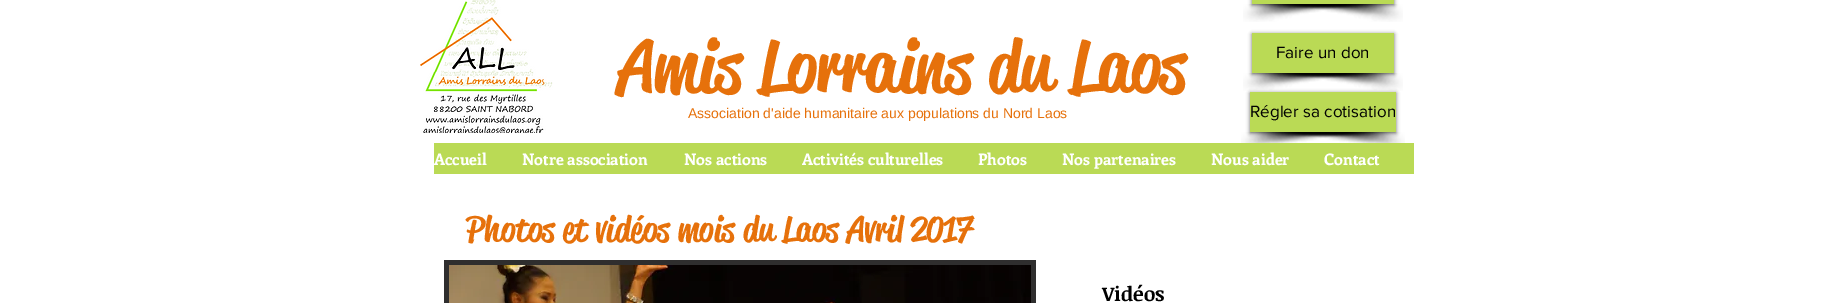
%!PS-Adobe-3.0
%%BoundingBox: 0 0 1830 303
%%LanguageLevel: 3
%%Pages: 1
%%EndComments
%%BeginProlog
/setink { dup -16 bitshift 255 div exch dup -8 bitshift 255 and 255 div exch 255 and 255 div setrgbcolor } def
/usefont { [ exch dup neg 0 0 3 -1 roll 0 0 ] selectfont } def
/setalpha { dup .setfillconstantalpha .setstrokeconstantalpha } def
/rrect { 5 dict begin { /r /h /w /y /x } { exch def } forall
  x r add y moveto x w add y 2 copy h add r arct x w add y h add x 1 index r arct
  x y h add x y r arct x y 2 copy exch w add exch r arct closepath end } def
/softshadow { 12 dict begin { /a /b /q /h /w /y /x } { exch def } forall gsave /was 0 def
  9 -2 -9 { dup b mul 4 div /e exch def 1 sub .425 mul 2.718 exch exp 1 add a .99 .min exch div /now exch def
    1 1 now sub 1 was sub div sub setalpha /was now def
    w h .min e 2 mul add 0 gt { x e sub y e sub w e 2 mul add h e 2 mul add
      q e add b .6 mul add w h .min 2 div e add .min 0 .max rrect fill } if } for grestore end } def
/drawimage { 5 dict begin { /h /w /y /x /name } { exch def } forall
  gsave x y translate w h scale
  w h 8 [w 0 0 h 0 0] name (r) file false 3 colorimage grestore end } def
%%EndProlog
%%BeginSetup
<< /PageSize [1830 303] /PageUsesTransparency true >> setpagedevice
%%EndSetup
%%Page: 1 1
0 .pushpdf14devicefilter
0 303 translate 1 -1 scale
4 setmiterlimit
16#FFFFFF setink
0 0 1830 303 rectfill
(img1.raw) 1243 4 154 18 drawimage
(img2.raw) 1249 4 154 18 drawimage
16#000000 setink
1252 -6 142 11 0 2 0.6 softshadow
16#BADA55 setink
1252 0 142 4 rectfill
(img3.raw) 420 0 133 133 drawimage
/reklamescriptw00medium-Medium 72 usefont
16#E6710B setink
618 91 moveto (Amis Lorrains du Laos) show
(img1.raw) 1243 73 154 18 drawimage
(img2.raw) 1249 73 154 18 drawimage
16#000000 setink
1252 34 142 40 0 2 0.6 softshadow
16#BADA55 setink
1252 33 142 40 rectfill
/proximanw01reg-Regular 17 usefont
16#000000 setink
1276 58 moveto (Faire un don) show
/LiberationSans-Regular 14 usefont
16#E6710B setink
688 118 moveto (Association d'aide humanitaire aux populations du Nord Laos) show
(img4.raw) 1241 132 154 11 drawimage
(img5.raw) 1251 132 154 11 drawimage
16#000000 setink
1250 93 146 40 0 2 0.6 softshadow
16#BADA55 setink
1250 92 146 40 rectfill
/proximanw01reg-Regular 17 usefont
16#000000 setink
1250 117 moveto (Régler sa cotisation) show
16#BADA55 setink
434 143 980 31 rectfill
/Enriqueta-Bold 16 usefont
16#FFFFFF setink
[
    [(Accueil) 434 165]
    [(Notre association) 522 165]
    [(Nos actions) 684 165]
    [(Activités culturelles) 802 165]
    [(Photos) 978 165]
    [(Nos partenaires) 1062 165]
    [(Nous aider) 1211 165]
    [(Contact) 1324 165]
] { aload pop moveto show } forall
/reklamescriptw00medium-Medium 35 usefont
16#E6710B setink
466 241 moveto (Photos et vidéos mois du Laos Avril 2017) show
16#2F2E2E setink
444 260 592 43 rectfill
(img6.raw) 449 265 582 38 drawimage
/NoticiaText-Bold 20 usefont
16#000000 setink
1102 301 moveto (Vidéos) show
.poppdf14devicefilter showpage
%%EOF
